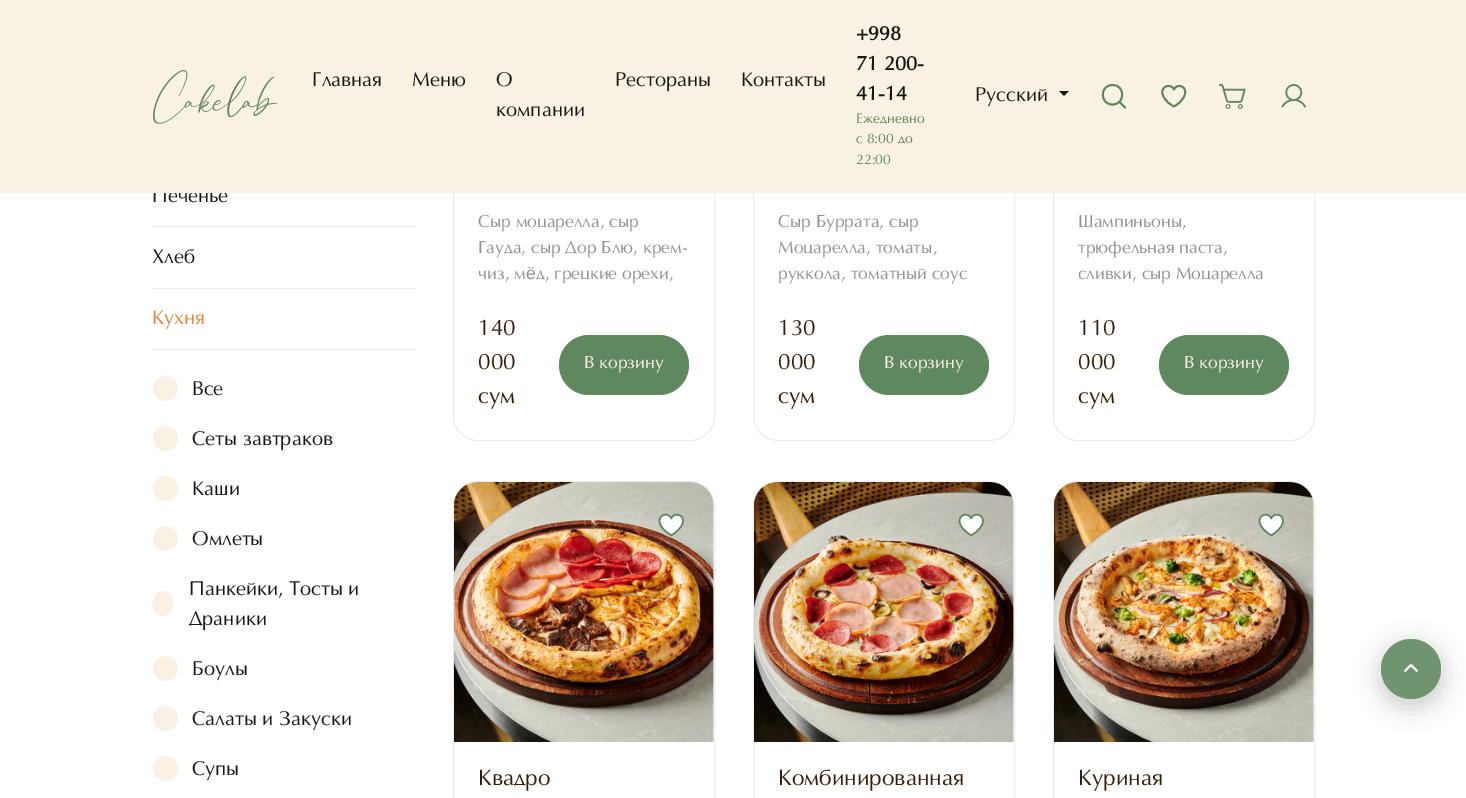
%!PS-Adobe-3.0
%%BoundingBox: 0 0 1466 798
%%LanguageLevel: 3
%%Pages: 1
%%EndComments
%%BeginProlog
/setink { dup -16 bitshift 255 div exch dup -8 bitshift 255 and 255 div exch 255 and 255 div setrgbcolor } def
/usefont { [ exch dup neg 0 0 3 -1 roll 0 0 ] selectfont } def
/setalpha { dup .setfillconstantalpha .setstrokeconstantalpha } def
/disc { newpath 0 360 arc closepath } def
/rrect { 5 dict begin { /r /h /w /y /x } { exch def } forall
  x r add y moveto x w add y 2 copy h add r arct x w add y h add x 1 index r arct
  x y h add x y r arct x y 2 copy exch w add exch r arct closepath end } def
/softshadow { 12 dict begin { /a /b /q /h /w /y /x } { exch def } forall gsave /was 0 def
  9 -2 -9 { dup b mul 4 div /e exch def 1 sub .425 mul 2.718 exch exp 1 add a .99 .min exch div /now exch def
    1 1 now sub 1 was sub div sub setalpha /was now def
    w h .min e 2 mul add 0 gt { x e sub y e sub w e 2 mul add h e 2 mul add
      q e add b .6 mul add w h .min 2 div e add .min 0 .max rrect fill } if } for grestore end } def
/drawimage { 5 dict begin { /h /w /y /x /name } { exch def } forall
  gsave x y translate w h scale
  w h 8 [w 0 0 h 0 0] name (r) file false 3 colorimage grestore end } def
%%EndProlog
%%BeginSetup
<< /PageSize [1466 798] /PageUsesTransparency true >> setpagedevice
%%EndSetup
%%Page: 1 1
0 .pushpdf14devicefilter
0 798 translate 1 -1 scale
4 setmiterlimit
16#FFFFFF setink
0 0 1466 798 rectfill
/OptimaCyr-Regular 20 usefont
16#171717 setink
152 202 moveto (Печенье) show
16#EDEDED setink
453.5 -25.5 261 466 24.5 rrect stroke
753.5 -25.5 261 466 24.5 rrect stroke
1053.5 -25.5 261 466 24.5 rrect stroke
16#FAF1E5 setink
0 0 1466 193 rectfill
(img1.raw) 153 70 124 54 drawimage
16#171717 setink
[
    [(Главная) 312 86]
    [(Меню) 412 86]
    [(О) 496 86]
    [(компании) 496 116]
    [(Рестораны) 615 86]
    [(Контакты) 741 86]
] { aload pop moveto show } forall
/OptimaCyr-Bold 20 usefont
[
    [(+998) 856 40]
    [(71 200-) 856 70]
    [(41-14) 856 100]
] { aload pop moveto show } forall
/OptimaCyr-Regular 14 usefont
16#60885F setink
[
    [(Ежедневно) 856 123]
    [(с 8:00 до) 856 143]
    [(22:00) 856 164]
] { aload pop moveto show } forall
/OptimaCyr-Regular 20 usefont
16#171717 setink
975 101 moveto (Русский) show
1059 91 moveto 1069 91 lineto 1064 96 lineto closepath fill
16#60885F setink
1.9 setlinewidth
1 setlinecap
1 setlinejoin
1112.5 104.5 moveto 1125.5 104.5 1125.5 85 1112.5 85 curveto 1099.5 85 1099.5 104.5 1112.5 104.5 curveto closepath 1119.5 102 moveto 1125 107.5 lineto stroke
1174 106.5 moveto 1170 104.5 1166 101.5 1164 97.5 curveto 1157.5 87 1170.5 82 1174 89.5 curveto 1177 82 1190 87 1183.5 97.5 curveto 1181.5 101.5 1177.5 104.5 1174 106.5 curveto closepath stroke
(img2.raw) 1219 84 27 25 drawimage
(img3.raw) 1281 84 25 24 drawimage
16#EDEDED setink
153 226 262 1 rectfill
16#171717 setink
152 263 moveto (Хлеб) show
16#EDEDED setink
153 288 262 1 rectfill
16#E78439 setink
152 324 moveto (Кухня) show
16#EDEDED setink
153 349 262 1 rectfill
16#FAF1E5 setink
165.5 388.5 12.5 disc fill
16#171717 setink
192 395 moveto (Все) show
16#FAF1E5 setink
165.5 438.5 12.5 disc fill
16#171717 setink
192 445 moveto (Сеты завтраков) show
16#FAF1E5 setink
165.5 488.5 12.5 disc fill
16#171717 setink
192 495 moveto (Каши) show
16#FAF1E5 setink
165.5 538.5 12.5 disc fill
16#171717 setink
192 545 moveto (Омлеты) show
16#FAF1E5 setink
163 591 moveto 169 591 173.5 596.5 173.5 603.5 curveto 173.5 610.5 169 616 163 616 curveto 157 616 152.5 610.5 152.5 603.5 curveto 152.5 596.5 157 591 163 591 curveto closepath fill
16#171717 setink
189 595 moveto (Панкейки, Тосты и) show
189 625 moveto (Драники) show
16#FAF1E5 setink
165.5 668.5 12.5 disc fill
16#171717 setink
192 675 moveto (Боулы) show
16#FAF1E5 setink
165.5 718.5 12.5 disc fill
16#171717 setink
192 725 moveto (Салаты и Закуски) show
16#FAF1E5 setink
165.5 768.5 12.5 disc fill
16#171717 setink
192 775 moveto (Супы) show
/OptimaCyr-Regular 17.5 usefont
16#919191 setink
[
    [(Сыр моцарелла, сыр) 478 227]
    [(Гауда, сыр Дор Блю, крем-) 478 253]
    [(чиз, м) 478 279]
] { aload pop moveto show } forall
/LiberationSans-Regular 17.5 usefont
526 279 moveto (ё) show
/OptimaCyr-Regular 17.5 usefont
536 279 moveto (д, грецкие орехи,) show
/OptimaCyr-Regular 22.5 usefont
16#371C06 setink
[
    [(140) 478 335]
    [(000) 478 369]
    [(сум) 478 403]
] { aload pop moveto show } forall
16#60885F setink
559 335 130 60 30 rrect fill
/OptimaCyr-Regular 17.5 usefont
16#FAF1E5 setink
584 368 moveto (В корзину) show
16#919191 setink
[
    [(Сыр Буррата, сыр) 778 227]
    [(Моцарелла, томаты,) 778 253]
    [(руккола, томатный соус) 778 279]
] { aload pop moveto show } forall
/OptimaCyr-Regular 22.5 usefont
16#371C06 setink
[
    [(130) 778 335]
    [(000) 778 369]
    [(сум) 778 403]
] { aload pop moveto show } forall
16#60885F setink
859 335 130 60 30 rrect fill
/OptimaCyr-Regular 17.5 usefont
16#FAF1E5 setink
884 368 moveto (В корзину) show
16#919191 setink
1078 227 moveto (Шампиньоны,) show
1078 253 moveto (трюфельная паста,) show
gsave
1079 210 210 79 rectclip
1078 279 moveto (сливки, сыр Моцарелла) show
grestore
/OptimaCyr-Regular 22.5 usefont
16#371C06 setink
[
    [(110) 1078 335]
    [(000) 1078 369]
    [(сум) 1078 403]
] { aload pop moveto show } forall
16#60885F setink
1159 335 130 60 30 rrect fill
/OptimaCyr-Regular 17.5 usefont
16#FAF1E5 setink
1184 368 moveto (В корзину) show
16#EDEDED setink
1 setlinewidth
0 setlinecap
0 setlinejoin
453.5 481.5 261 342 24.5 rrect stroke
(img4.raw) 454 482 260 260 drawimage
(img5.raw) 658 513 26 24 drawimage
/OptimaCyr-Regular 22.5 usefont
16#371C06 setink
478 785 moveto (Квадро) show
16#EDEDED setink
753.5 481.5 261 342 24.5 rrect stroke
(img6.raw) 754 482 260 260 drawimage
(img7.raw) 958 513 26 24 drawimage
16#371C06 setink
778 785 moveto (Комбинированная) show
16#EDEDED setink
1053.5 481.5 261 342 24.5 rrect stroke
(img8.raw) 1054 482 260 260 drawimage
(img9.raw) 1258 513 26 24 drawimage
16#371C06 setink
1078 785 moveto (Куриная) show
16#1A1A1A setink
1379 643 65 65 32.5 11 0.2 softshadow
16#70946F setink
1411 669 30 disc fill
16#FFFFFF setink
1.8 setlinewidth
1 setlinecap
1 setlinejoin
1417 671 moveto 1411 665 lineto 1405 671 lineto stroke
.poppdf14devicefilter showpage
%%EOF
